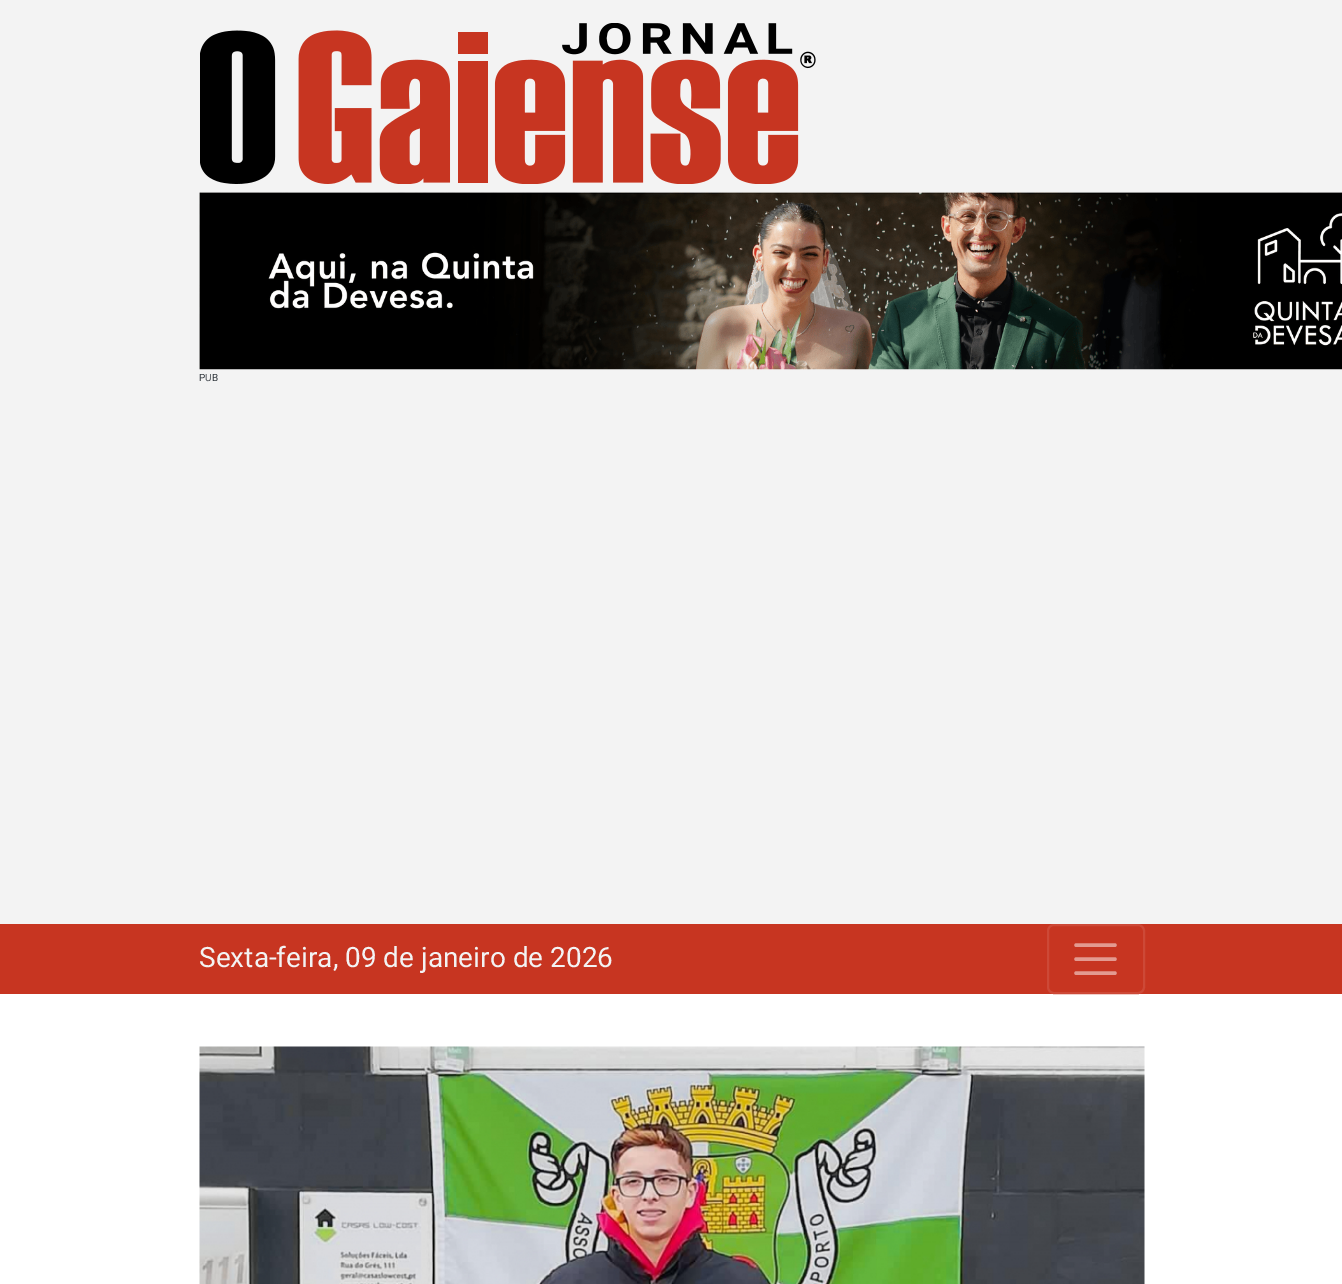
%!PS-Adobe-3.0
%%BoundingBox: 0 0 1342 1284
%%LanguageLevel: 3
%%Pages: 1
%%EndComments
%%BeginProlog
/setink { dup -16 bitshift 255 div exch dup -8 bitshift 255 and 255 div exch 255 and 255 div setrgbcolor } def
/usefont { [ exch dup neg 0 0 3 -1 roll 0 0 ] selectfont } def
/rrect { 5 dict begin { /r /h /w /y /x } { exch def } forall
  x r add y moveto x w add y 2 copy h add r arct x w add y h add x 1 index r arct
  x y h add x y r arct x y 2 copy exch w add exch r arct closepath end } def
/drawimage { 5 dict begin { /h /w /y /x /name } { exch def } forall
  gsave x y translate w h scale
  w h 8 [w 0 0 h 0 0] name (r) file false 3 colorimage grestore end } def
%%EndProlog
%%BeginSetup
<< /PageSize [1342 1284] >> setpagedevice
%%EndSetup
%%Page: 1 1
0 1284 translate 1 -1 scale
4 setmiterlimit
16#FFFFFF setink
0 0 1342 1284 rectfill
16#F3F3F3 setink
0 0 1342 924 rectfill
(img1.raw) 200 23 616 161 drawimage
(img2.raw) 199 192 1143 178 drawimage
/Roboto-Regular 10 usefont
16#343A40 setink
199 381 moveto (PUB) show
16#C73521 setink
0 924 1342 70 rectfill
/Roboto-Regular 28 usefont
16#F3F3F3 setink
199 967 moveto (Sexta-feira, 09 de janeiro de 2026) show
16#CD4937 setink
2 setlinewidth
1048 925 96 68 6 rrect stroke
16#E39A90 setink
3.5 setlinewidth
1 setlinecap
1076 945 moveto 1115 945 lineto 1076 959 moveto 1115 959 lineto 1076 973 moveto 1115 973 lineto stroke
(img3.raw) 199 1046 946 238 drawimage
showpage
%%EOF
